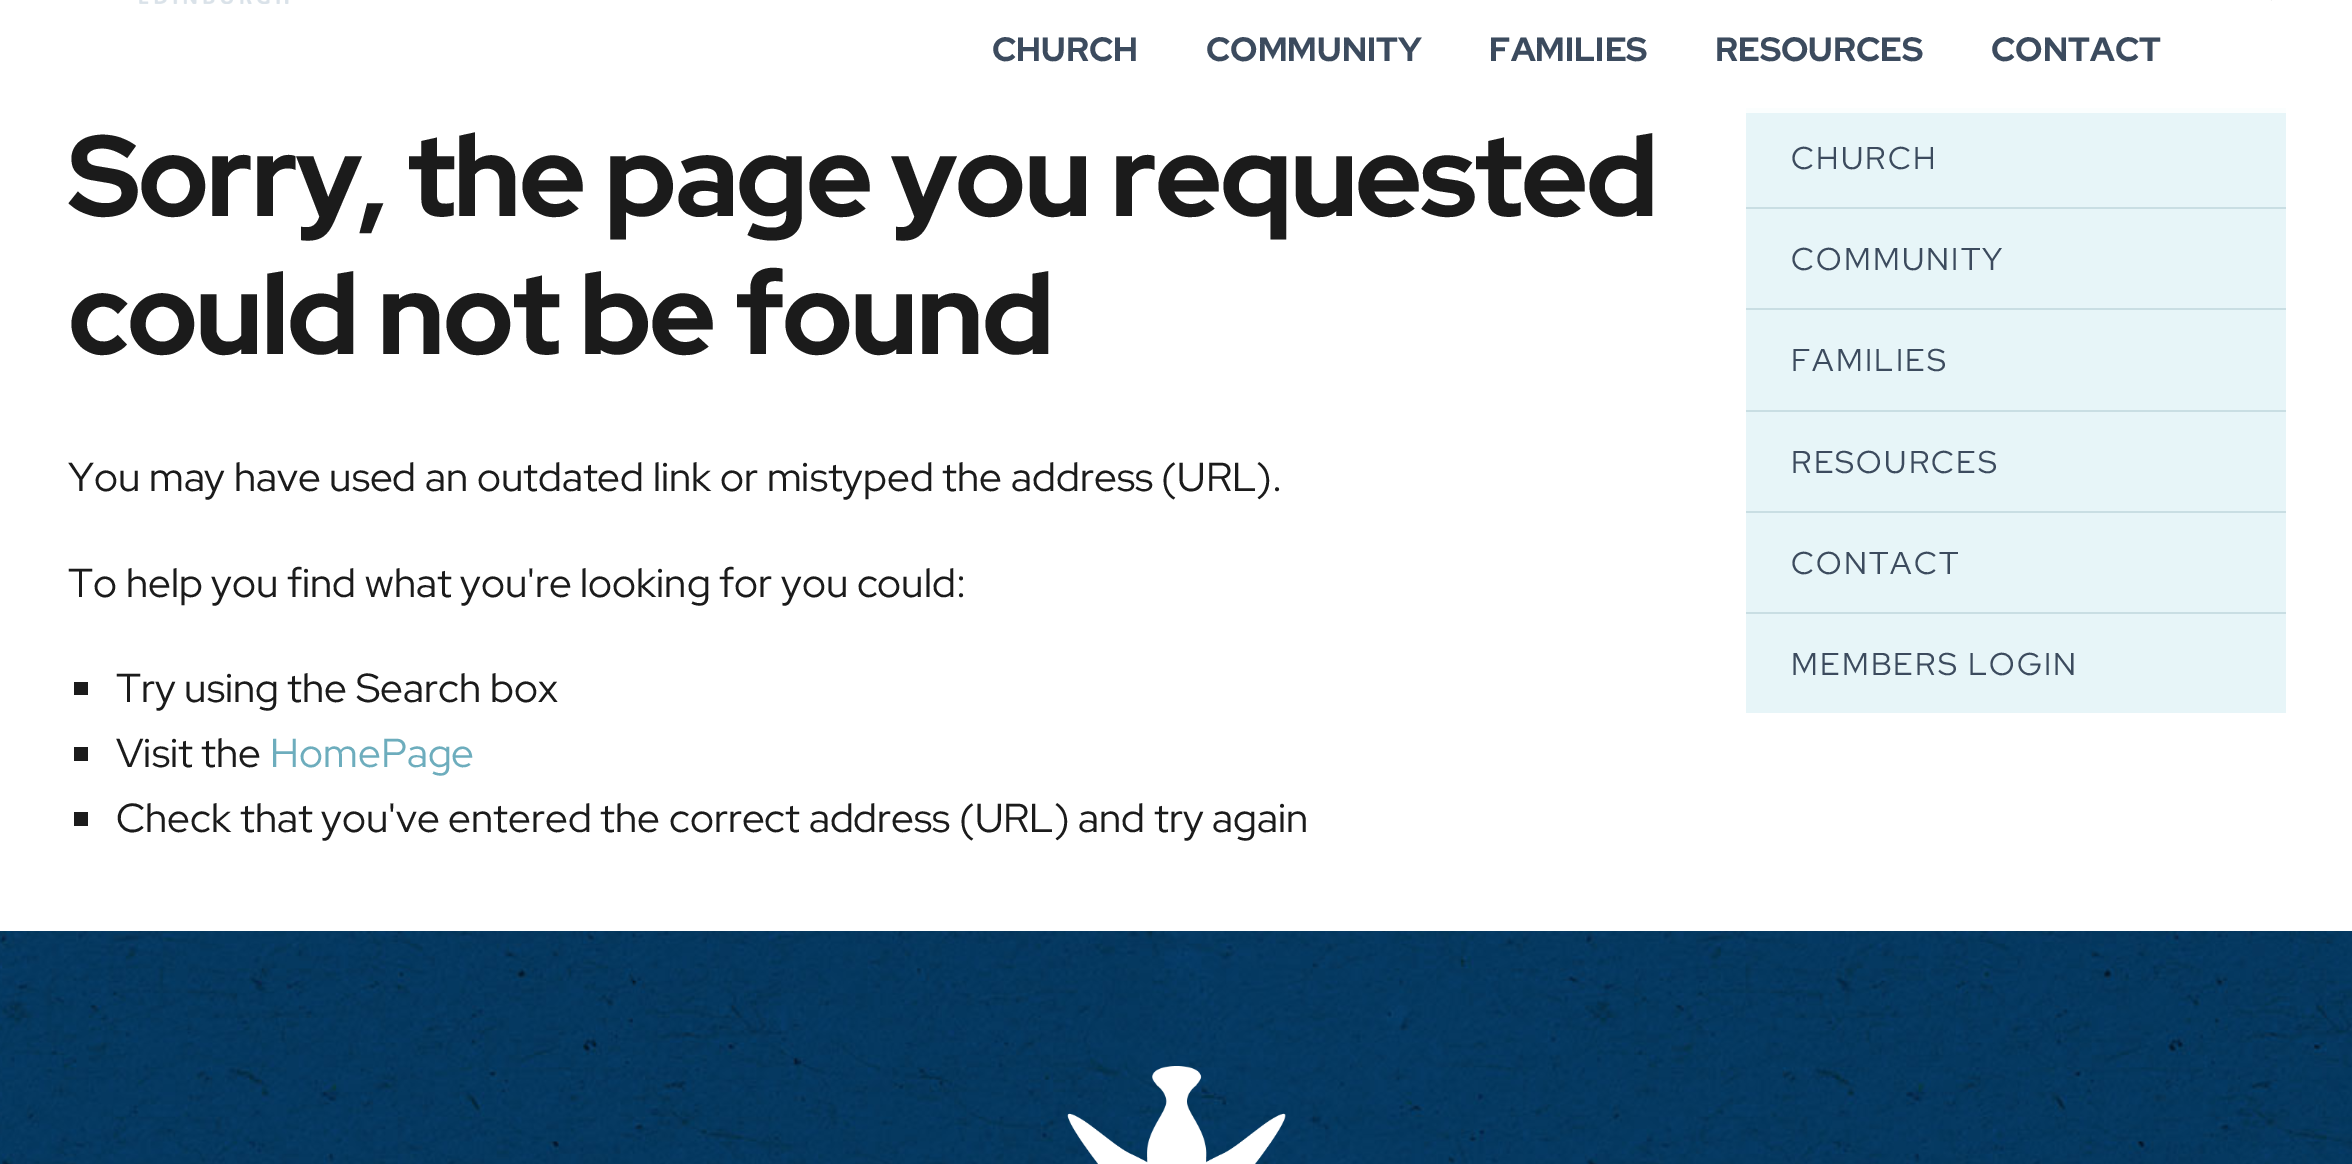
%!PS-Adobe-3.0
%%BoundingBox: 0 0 2352 1164
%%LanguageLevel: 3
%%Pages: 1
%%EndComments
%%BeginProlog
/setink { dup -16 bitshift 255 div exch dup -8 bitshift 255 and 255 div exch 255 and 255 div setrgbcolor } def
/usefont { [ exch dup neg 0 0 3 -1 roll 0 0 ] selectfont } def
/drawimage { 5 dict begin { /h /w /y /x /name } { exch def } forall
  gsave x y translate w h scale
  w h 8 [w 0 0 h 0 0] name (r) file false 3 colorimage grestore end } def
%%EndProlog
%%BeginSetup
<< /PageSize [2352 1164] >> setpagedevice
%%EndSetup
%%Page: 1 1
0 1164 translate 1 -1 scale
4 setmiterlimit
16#FFFFFF setink
0 0 2352 1164 rectfill
(img1.raw) 139 0 150 4 drawimage
(img2.raw) 2270 0 2 1 drawimage
/RedHatDisplay-Bold 33.75 usefont
16#3C4B5E setink
[
    [(CHURCH) 992 61]
    [(COMMUNITY) 1206 61]
    [(FAMILIES) 1489 61]
    [(RESOURCES) 1715 61]
    [(CONTACT) 1991 61]
] { aload pop moveto show } forall
/RedHatDisplay-Bold 114.75 usefont
16#1B1B1B setink
68 216 moveto -2.3 0 (Sorry, the page you requested) ashow
68 354 moveto -2.3 0 (could not be found) ashow
/RedHatDisplay-Regular 40.5 usefont
68 491 moveto (You may have used an outdated link or mistyped the address \(URL\).) show
68 597 moveto (To help you find what you're looking for you could:) show
74 682 14 13 rectfill
116 702 moveto (Try using the Search box) show
74 747 14 14 rectfill
116 767 moveto (Visit the) show
16#6DADBD setink
270 767 moveto (HomePage) show
16#1B1B1B setink
74 812 14 14 rectfill
116 832 moveto (Check that you've entered the correct address \(URL\) and try again) show
16#E7F5F8 setink
1746 113 540 600 rectfill
16#FBFEFE setink
1746 108 540 5 rectfill
/RedHatDisplay-Regular 31.5 usefont
16#3C4B5E setink
1791 169 moveto 2.25 0 (CHURCH) ashow
16#C9DEE3 setink
1746 207 540 2 rectfill
16#3C4B5E setink
1791 270 moveto 2.25 0 (COMMUNITY) ashow
16#C9DEE3 setink
1746 308 540 2 rectfill
16#3C4B5E setink
1791 371 moveto 2.25 0 (FAMILIES) ashow
16#C9DEE3 setink
1746 410 540 2 rectfill
16#3C4B5E setink
1791 473 moveto 2.25 0 (RESOURCES) ashow
16#C9DEE3 setink
1746 511 540 2 rectfill
16#3C4B5E setink
1791 574 moveto 2.25 0 (CONTACT) ashow
16#C9DEE3 setink
1746 612 540 2 rectfill
16#3C4B5E setink
1791 675 moveto 2.25 0 (MEMBERS LOGIN) ashow
(img3.raw) 0 931 2352 233 drawimage
(img4.raw) 1067 1066 219 98 drawimage
showpage
%%EOF
